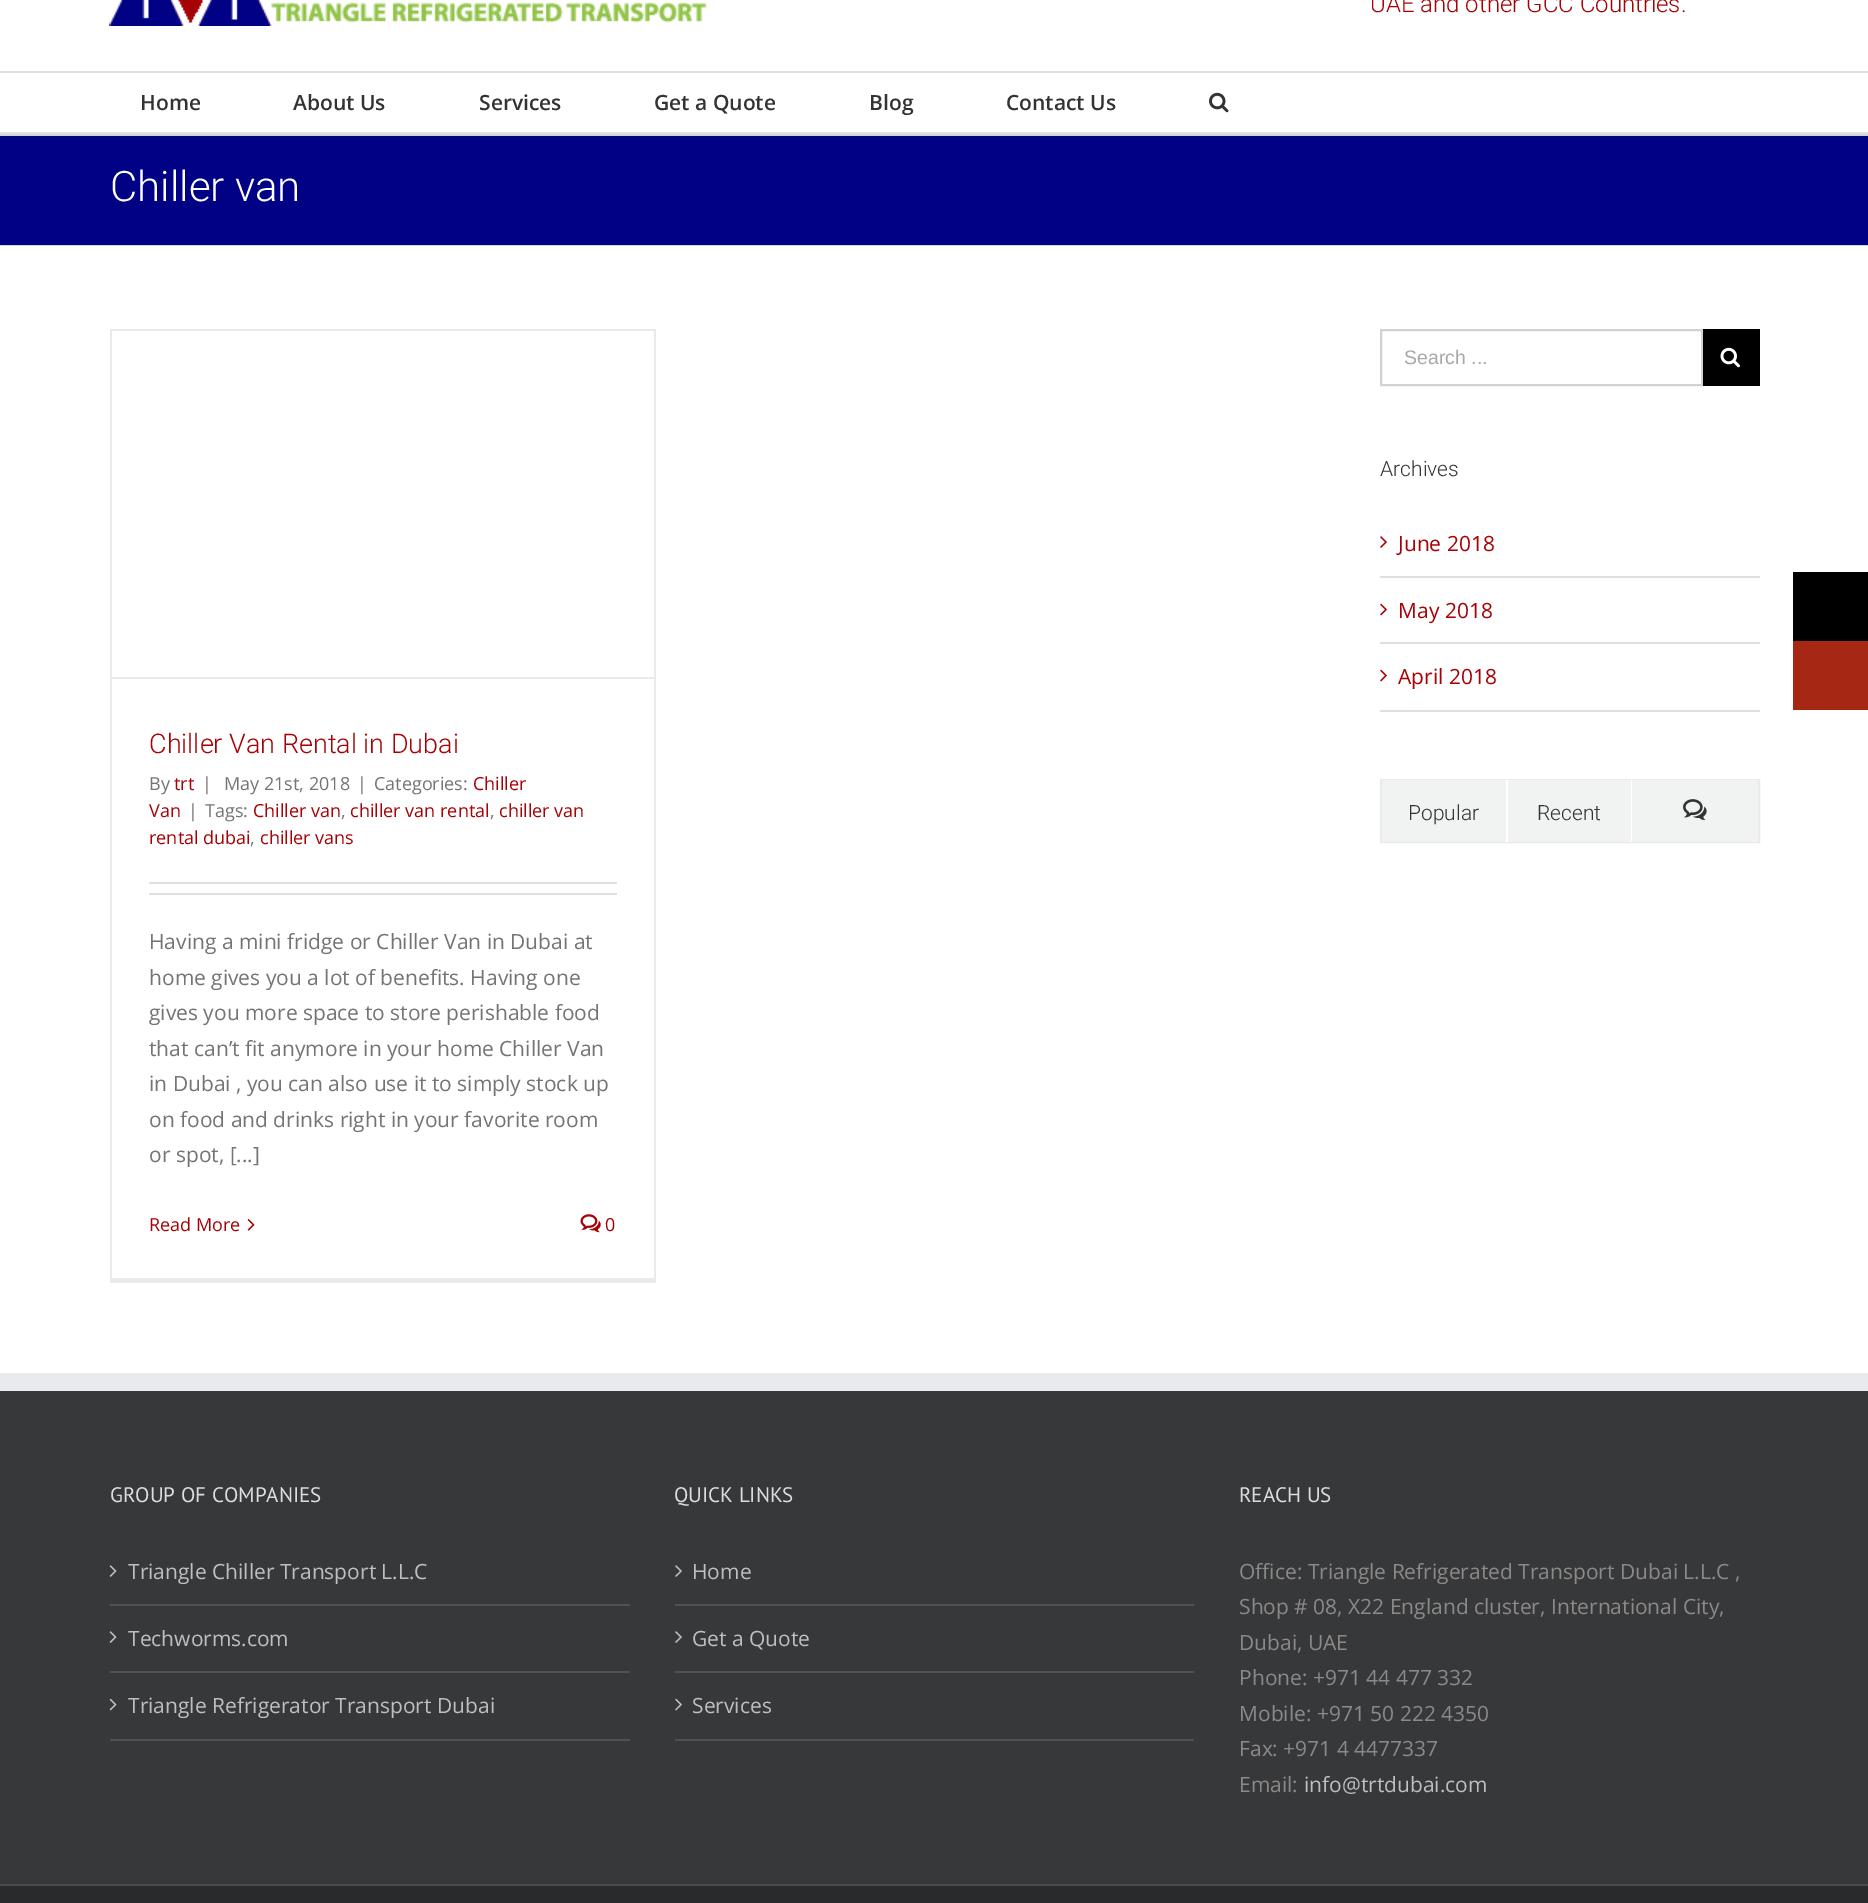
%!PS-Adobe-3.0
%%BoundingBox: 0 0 1868 1903
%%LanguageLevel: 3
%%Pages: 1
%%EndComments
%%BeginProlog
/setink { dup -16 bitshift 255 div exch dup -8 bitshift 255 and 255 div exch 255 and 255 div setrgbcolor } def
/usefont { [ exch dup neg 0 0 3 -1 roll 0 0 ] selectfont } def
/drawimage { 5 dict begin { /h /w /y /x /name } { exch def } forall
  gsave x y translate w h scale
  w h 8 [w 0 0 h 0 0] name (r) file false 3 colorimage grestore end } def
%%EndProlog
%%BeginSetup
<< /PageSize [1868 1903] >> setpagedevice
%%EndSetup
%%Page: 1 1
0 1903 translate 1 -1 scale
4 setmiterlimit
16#FFFFFF setink
0 0 1868 1903 rectfill
16#E1E1E1 setink
0 71 1868 2 rectfill
(img1.raw) 109 0 598 26 drawimage
/Roboto-Light 24 usefont
16#A60105 setink
1370 12 moveto (UAE and other GCC Countries.) show
16#E1E1E1 setink
0 132 1868 2 rectfill
/OpenSans-SemiBold 21 usefont
16#333333 setink
[
    [(Home) 140 110]
    [(About Us) 293 110]
    [(Services) 479 110]
    [(Get a Quote) 654 110]
    [(Blog) 869 110]
    [(Contact Us) 1006 110]
] { aload pop moveto show } forall
(img2.raw) 1209 92 20 21 drawimage
[
    [0 136 1868 109 16#000184]
    [0 134 1868 2 16#D2D3D4]
    [0 245 1868 1 16#D2D3D4]
] { aload pop setink rectfill } forall
/Roboto-Light 42 usefont
16#FFFFFF setink
110 201 moveto (Chiller van) show
16#D2D2D2 setink
2 setlinewidth
1381 330 321 55 rectstroke
/LiberationSans-Regular 19.5 usefont
16#AAA9A9 setink
1404 364 moveto (Search ...) show
16#000000 setink
1703 329 57 57 rectfill
(img3.raw) 1720 347 20 21 drawimage
/Roboto-Light 21 usefont
16#333333 setink
1380 476 moveto (Archives) show
16#E0DEDE setink
1380 576 380 2 rectfill
(img4.raw) 1380 536 7 12 drawimage
/OpenSans-Regular 21 usefont
16#A60105 setink
1398 551 moveto (June 2018) show
16#E0DEDE setink
1380 642 380 2 rectfill
(img5.raw) 1380 603 7 13 drawimage
16#A60105 setink
1398 618 moveto (May 2018) show
16#E0DEDE setink
1380 710 380 2 rectfill
(img5.raw) 1380 669 7 13 drawimage
16#A60105 setink
1398 684 moveto (April 2018) show
16#EBEAEA setink
1381 780 378 62 rectstroke
16#FFFFFF setink
1506 780 2 62 rectfill
16#F1F2F2 setink
1382 780 124 62 rectfill
/Roboto-Light 21 usefont
16#333333 setink
1408 820 moveto (Popular) show
16#FFFFFF setink
1631 780 1 62 rectfill
16#F1F2F2 setink
1508 780 123 62 rectfill
16#333333 setink
1537 820 moveto (Recent) show
16#F1F2F2 setink
1632 780 126 62 rectfill
(img6.raw) 1683 799 24 22 drawimage
[
    [110 329 546 2 16#EBEAEA]
    [654 329 2 954 16#EBEAEA]
    [110 1278 546 5 16#EBEAEA]
    [110 329 2 954 16#EBEAEA]
    [111 677 543 2 16#EBEAEA]
] { aload pop setink rectfill } forall
/Roboto-Light 27 usefont
16#A60105 setink
149 753 moveto (Chiller Van Rental in Dubai) show
/OpenSans-Regular 18 usefont
16#747474 setink
149 790 moveto (By) show
16#A60105 setink
174 790 moveto (trt) show
16#747474 setink
[
    [(|) 202 790]
    [(May 21st, 2018) 224 790]
    [(|) 357 790]
    [(Categories:) 374 790]
] { aload pop moveto show } forall
16#A60105 setink
473 790 moveto (Chiller) show
149 817 moveto (Van) show
16#747474 setink
188 817 moveto (|) show
205 817 moveto (Tags:) show
16#A60105 setink
253 817 moveto (Chiller van) show
16#747474 setink
341 817 moveto (,) show
16#A60105 setink
350 817 moveto (chiller van rental) show
16#747474 setink
490 817 moveto (,) show
16#A60105 setink
499 817 moveto (chiller van) show
149 844 moveto (rental dubai) show
16#747474 setink
250 844 moveto (,) show
16#A60105 setink
260 844 moveto (chiller vans) show
16#E0DEDE setink
149 882 468 2 rectfill
149 893 468 2 rectfill
/OpenSans-Regular 21 usefont
16#747474 setink
[
    [(Having a mini fridge or Chiller Van in Dubai at) 149 949]
    [(home gives you a lot of benefits. Having one) 149 985]
    [(gives you more space to store perishable food) 149 1020]
    [(that can’t fit anymore in your home Chiller Van) 149 1056]
    [(in Dubai , you can also use it to simply stock up) 149 1091]
    [(on food and drinks right in your favorite room) 149 1127]
    [(or spot, [...]) 149 1162]
] { aload pop moveto show } forall
/OpenSans-Regular 18 usefont
16#A60105 setink
149 1231 moveto (Read More) show
(img7.raw) 247 1219 8 12 drawimage
(img8.raw) 580 1214 21 19 drawimage
605 1231 moveto (0) show
16#363839 setink
0 1391 1868 493 rectfill
16#E9EAEE setink
0 1373 1868 18 rectfill
/PTSans-Regular 21 usefont
16#DDDDDD setink
110 1502 moveto (GROUP OF COMPANIES) show
16#505152 setink
110 1604 520 2 rectfill
(img9.raw) 109 1565 8 12 drawimage
/OpenSans-Regular 21 usefont
16#BFBFBF setink
128 1579 moveto (Triangle Chiller Transport L.L.C) show
16#505152 setink
110 1671 520 2 rectfill
(img9.raw) 109 1631 8 12 drawimage
16#BFBFBF setink
128 1646 moveto (Techworms.com) show
16#505152 setink
110 1739 520 2 rectfill
(img10.raw) 109 1698 8 13 drawimage
16#BFBFBF setink
128 1713 moveto (Triangle Refrigerator Transport Dubai) show
/PTSans-Regular 21 usefont
16#DDDDDD setink
674 1502 moveto (QUICK LINKS) show
16#505152 setink
675 1604 519 2 rectfill
(img11.raw) 675 1565 7 12 drawimage
/OpenSans-Regular 21 usefont
16#BFBFBF setink
692 1579 moveto (Home) show
16#505152 setink
675 1671 519 2 rectfill
(img11.raw) 675 1631 7 12 drawimage
16#BFBFBF setink
692 1646 moveto (Get a Quote) show
16#505152 setink
675 1739 519 2 rectfill
(img12.raw) 675 1698 7 13 drawimage
16#BFBFBF setink
692 1713 moveto (Services) show
/PTSans-Regular 21 usefont
16#DDDDDD setink
1239 1502 moveto (REACH US) show
/OpenSans-Regular 21 usefont
16#8C8989 setink
[
    [(Office: Triangle Refrigerated Transport Dubai L.L.C ,) 1239 1579]
    [(Shop # 08, X22 England cluster, International City,) 1239 1614]
    [(Dubai, UAE) 1239 1650]
    [(Phone: +971 44 477 332) 1239 1685]
    [(Mobile: +971 50 222 4350) 1239 1721]
    [(Fax: +971 4 4477337) 1239 1756]
    [(Email:) 1239 1792]
] { aload pop moveto show } forall
16#BFBFBF setink
1304 1792 moveto (info@trtdubai.com) show
[
    [0 1886 1868 17 16#282A2B]
    [0 1884 1868 2 16#4B4C4D]
    [1793 572 75 69 16#000000]
    [1793 641 75 69 16#A52714]
] { aload pop setink rectfill } forall
showpage
%%EOF
